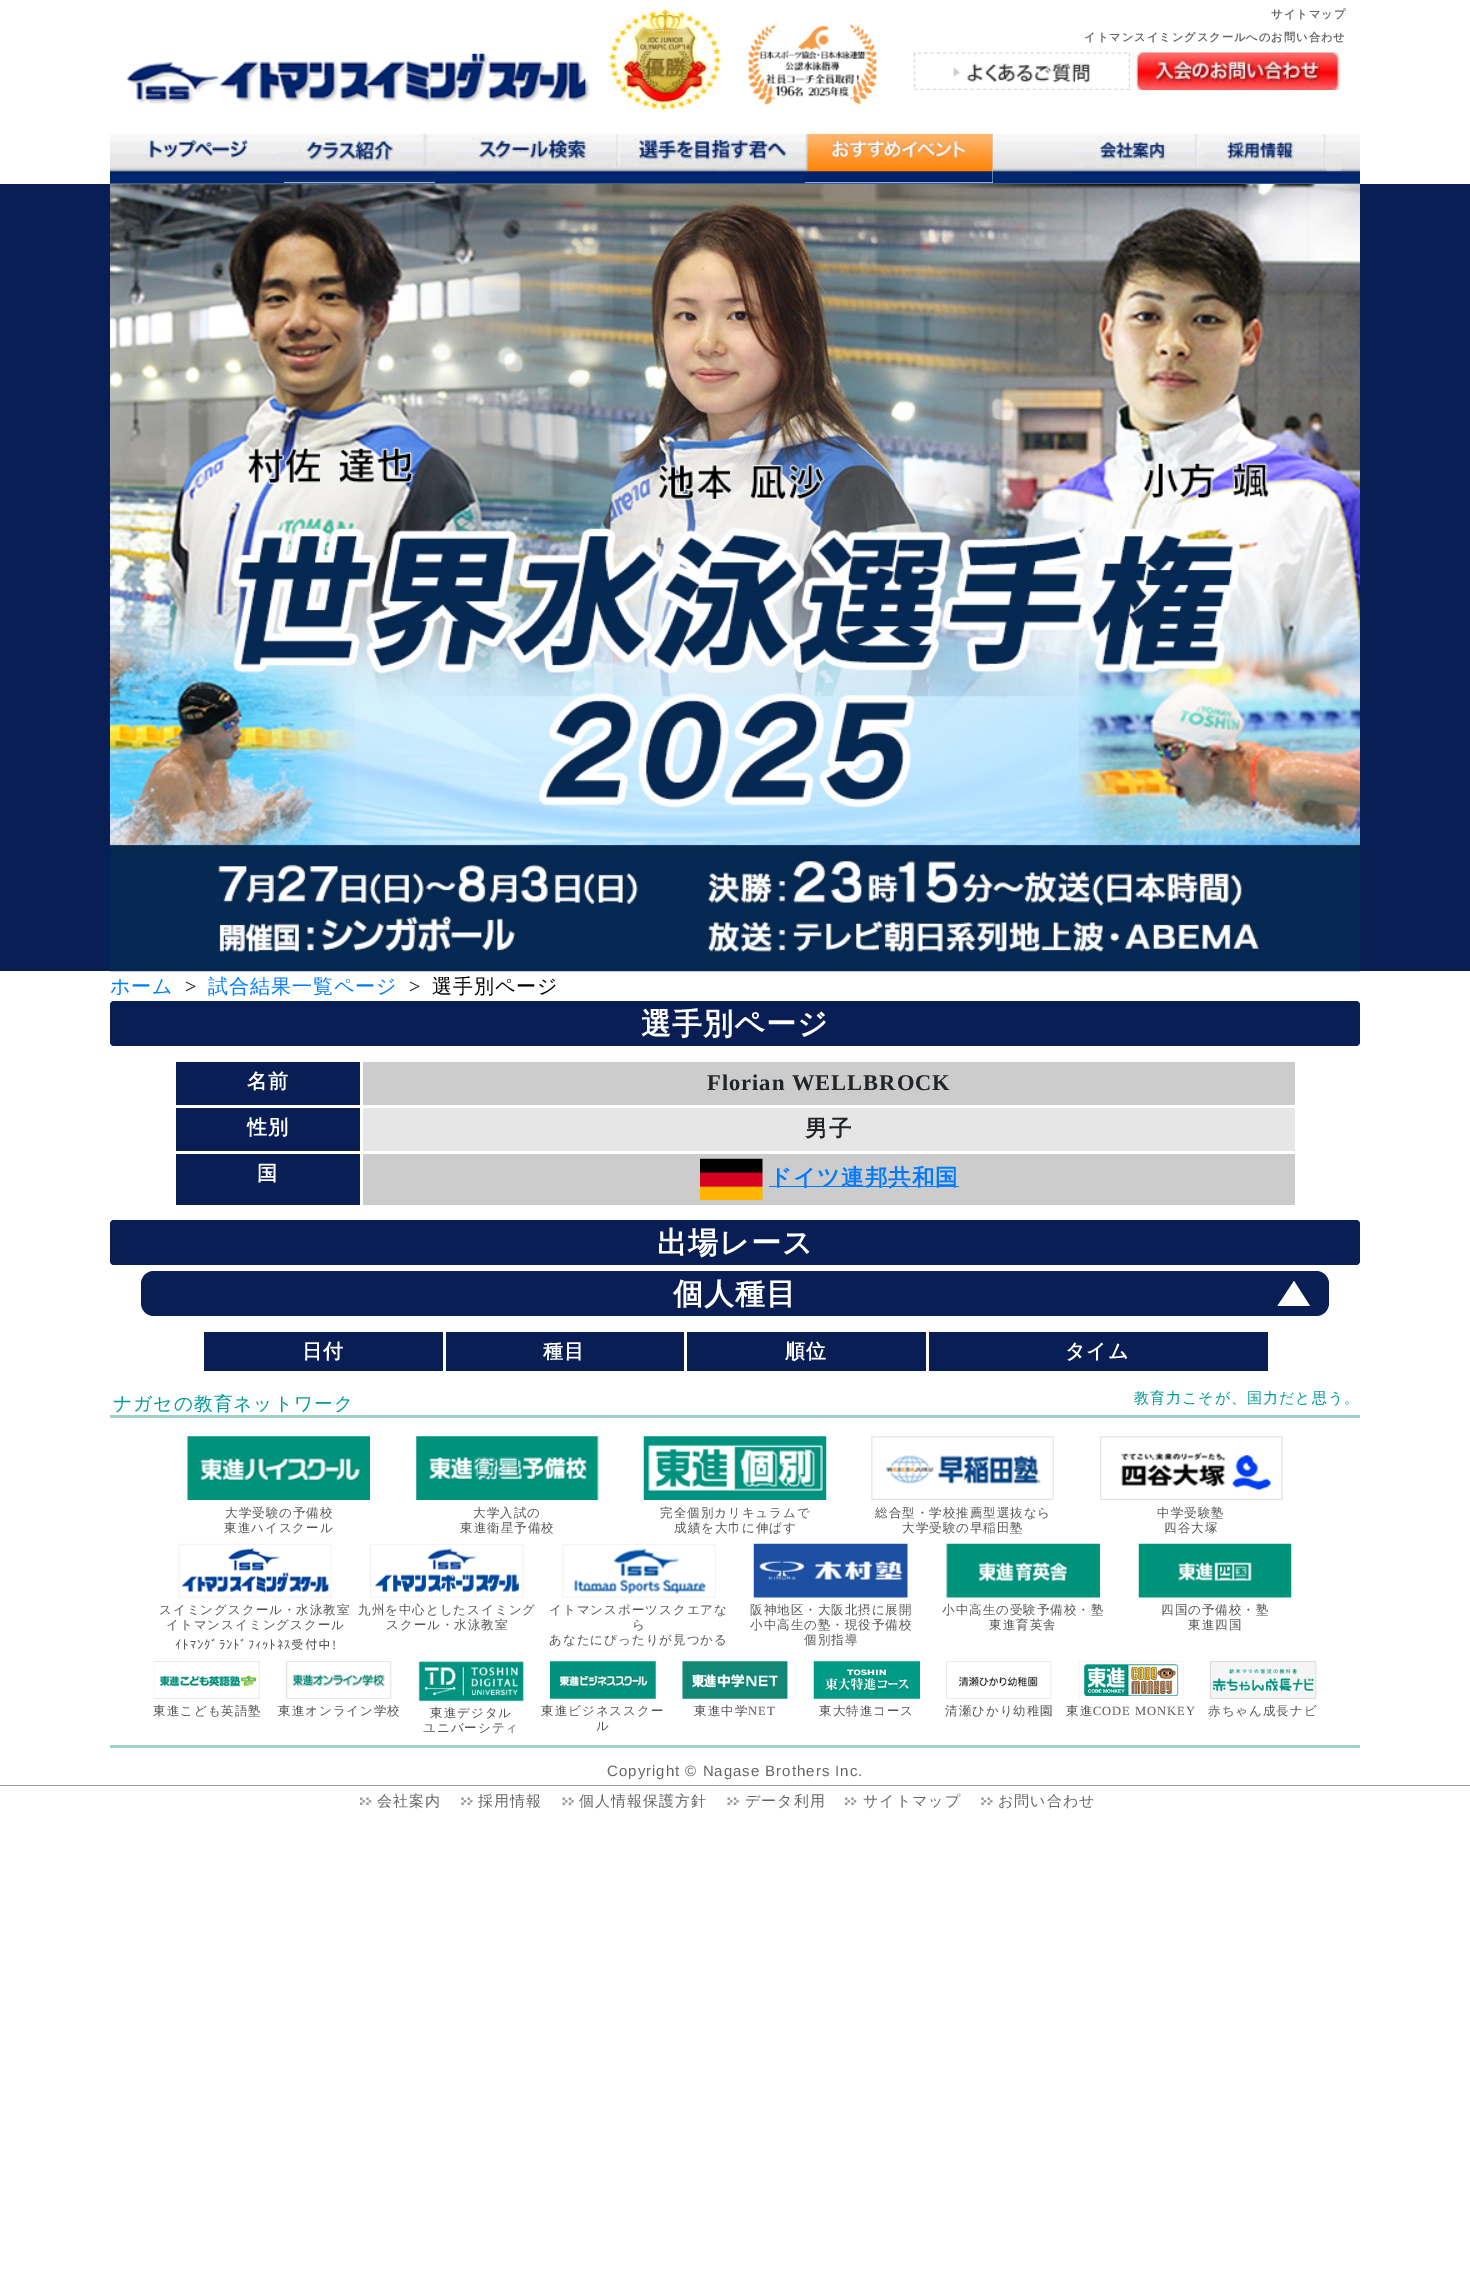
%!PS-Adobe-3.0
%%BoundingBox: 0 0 1470 2294
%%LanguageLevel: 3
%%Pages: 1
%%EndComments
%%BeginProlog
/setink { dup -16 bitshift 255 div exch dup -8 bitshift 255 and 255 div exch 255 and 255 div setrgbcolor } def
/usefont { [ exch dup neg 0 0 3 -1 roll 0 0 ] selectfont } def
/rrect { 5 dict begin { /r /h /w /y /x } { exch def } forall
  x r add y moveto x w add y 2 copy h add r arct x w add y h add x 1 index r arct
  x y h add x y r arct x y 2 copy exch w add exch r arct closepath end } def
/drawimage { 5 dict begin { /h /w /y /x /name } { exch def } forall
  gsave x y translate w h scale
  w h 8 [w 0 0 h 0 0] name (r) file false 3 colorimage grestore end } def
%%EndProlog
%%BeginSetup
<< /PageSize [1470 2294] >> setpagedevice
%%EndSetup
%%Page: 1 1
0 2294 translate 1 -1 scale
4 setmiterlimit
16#FFFFFF setink
0 0 1470 2294 rectfill
(img1.raw) 127 53 463 51 drawimage
(img2.raw) 608 7 115 105 drawimage
(img3.raw) 748 24 129 81 drawimage
/WenQuanYiZenHei-Bold 11.25 usefont
16#666666 setink
1271 18 moveto 1 0 (サイトマップ) ashow
1084 41 moveto 1 0 (イトマンスイミングスクールへのお問い合わせ) ashow
(img4.raw) 913 52 217 38 drawimage
(img5.raw) 1130 52 212 38 drawimage
16#091E55 setink
0 184 1470 787 rectfill
(img14.raw) 110 183 1250 789 drawimage
(img6.raw) 110 134 1250 50 drawimage
(img7.raw) 110 139 174 37 drawimage
16#BFDFFF setink
284 182 151 1 rectfill
(img8.raw) 284 134 151 49 drawimage
(img9.raw) 455 133 163 43 drawimage
(img10.raw) 617 134 188 42 drawimage
805 134 188 49 rectfill
(img11.raw) 805 133 188 50 drawimage
(img12.raw) 1072 133 126 43 drawimage
(img13.raw) 1197 133 145 43 drawimage
/WenQuanYiZenHei-Medium 20 usefont
16#007BFF setink
110 993 moveto 1 0 (ホーム) ashow
/LiberationSerif-Regular 20 usefont
16#000000 setink
185 993 moveto 1 0 (>) ashow
/WenQuanYiZenHei-Medium 20 usefont
16#007BFF setink
208 993 moveto 1 0 (試合結果一覧ページ) ashow
/LiberationSerif-Regular 20 usefont
16#000000 setink
409 993 moveto 1 0 (>) ashow
/WenQuanYiZenHei-Medium 20 usefont
432 993 moveto 1 0 (選手別ページ) ashow
16#091E55 setink
110 1001 1250 45 4 rrect fill
/WenQuanYiZenHei-Bold 30 usefont
16#FFFFFF setink
641 1034 moveto 1 0 (選手別ページ) ashow
16#CCCCCC setink
359 1062 936 43 rectfill
16#091E55 setink
174 1060 187 46 4 rrect fill
[
    [173 1060 188 2 16#FFFFFF]
    [173 1105 187 1 16#FFFFFF]
    [174 1059 2 49 16#FFFFFF]
] { aload pop setink rectfill } forall
/WenQuanYiZenHei-Bold 20 usefont
247 1088 moveto 1 0 (名前) ashow
360 1059 3 49 rectfill
/LiberationSerif-Bold 22.5 usefont
16#212529 setink
707 1090 moveto 1 0 (Florian WELLBROCK) ashow
16#E6E6E6 setink
363 1108 932 43 rectfill
16#091E55 setink
176 1108 184 43 rectfill
/WenQuanYiZenHei-Bold 20 usefont
16#FFFFFF setink
247 1134 moveto 1 0 (性別) ashow
/WenQuanYiZenHei-Bold 22.5 usefont
16#212529 setink
805 1136 moveto 1 0 (男子) ashow
16#CCCCCC setink
359 1154 936 51 rectfill
16#091E55 setink
174 1153 187 53 4 rrect fill
[
    [173 1153 187 1 16#FFFFFF]
    [173 1205 187 1 16#FFFFFF]
    [174 1151 2 57 16#FFFFFF]
] { aload pop setink rectfill } forall
/WenQuanYiZenHei-Bold 20 usefont
257 1180 moveto 1 0 (国) ashow
360 1151 3 57 rectfill
(img15.raw) 700 1158 63 42 drawimage
16#007BFF setink
769 1186 190 1 rectfill
/WenQuanYiZenHei-Bold 22.5 usefont
769 1185 moveto 1 0 (ドイツ連邦共和国) ashow
16#091E55 setink
110 1220 1250 45 4 rrect fill
/WenQuanYiZenHei-Bold 30 usefont
16#FFFFFF setink
657 1253 moveto 1 0 (出場レース) ashow
16#091E55 setink
141 1271 1188 45 13 rrect fill
16#FFFFFF setink
673 1304 moveto 1 0 (個人種目) ashow
1310 1306 moveto 1277.5 1306 lineto 1294 1281 lineto closepath fill
16#091E55 setink
204 1332 239 39 rectfill
/WenQuanYiZenHei-Bold 20 usefont
16#FFFFFF setink
302 1358 moveto 1 0 (日付) ashow
16#091E55 setink
446 1332 238 39 rectfill
16#FFFFFF setink
543 1358 moveto 1 0 (種目) ashow
16#091E55 setink
687 1332 239 39 rectfill
16#FFFFFF setink
785 1358 moveto 1 0 (順位) ashow
16#091E55 setink
929 1332 339 39 rectfill
16#FFFFFF setink
1065 1358 moveto 1 0 (タイム) ashow
/WenQuanYiZenHei-Medium 18.75 usefont
16#009999 setink
113 1410 moveto 1 0 (ナガセの教育ネットワーク) ashow
/WenQuanYiZenHei-Medium 15 usefont
1134 1403 moveto 1 0 (教育力こそが、国力だと思う。) ashow
16#A0D0C8 setink
110 1415 1250 3 rectfill
110 1745 1250 3 rectfill
(img16.raw) 187 1436 183 64 drawimage
/WenQuanYiZenHei-Medium 12.5 usefont
16#555555 setink
225 1517 moveto 1 0 (大学受験の予備校) ashow
224 1532 moveto 1 0 (東進ハイスクール) ashow
(img17.raw) 416 1436 183 64 drawimage
473 1517 moveto 1 0 (大学入試の) ashow
460 1532 moveto 1 0 (東進衛星予備校) ashow
(img18.raw) 643 1436 184 64 drawimage
660 1517 moveto 1 0 (完全個別カリキュラムで) ashow
674 1532 moveto 1 0 (成績を大巾に伸ばす) ashow
(img19.raw) 871 1436 183 64 drawimage
875 1517 moveto 1 0 (総合型・学校推薦型選抜なら) ashow
902 1532 moveto 1 0 (大学受験の早稲田塾) ashow
(img20.raw) 1100 1436 183 64 drawimage
1157 1517 moveto 1 0 (中学受験塾) ashow
1164 1532 moveto 1 0 (四谷大塚) ashow
(img21.raw) 178 1543 154 55 drawimage
159 1614 moveto 1 0 (スイミングスクール・水泳教室) ashow
166 1629 moveto 1 0 (イトマンスイミングスクール) ashow
/IPAGothic-Regular 12.5 usefont
175 1649 moveto 1 0 (ｲﾄﾏﾝｸﾞﾗﾝﾄﾞﾌｨｯﾄﾈｽ受付中) ashow
/LiberationSerif-Regular 12.5 usefont
332 1649 moveto 1 0 (!) ashow
(img22.raw) 370 1544 154 54 drawimage
/WenQuanYiZenHei-Medium 12.5 usefont
358 1614 moveto 1 0 (九州を中心としたスイミング) ashow
386 1629 moveto 1 0 (スクール・水泳教室) ashow
(img23.raw) 562 1544 154 54 drawimage
549 1614 moveto 1 0 (イトマンスポーツスクエアな) ashow
632 1629 moveto 1 0 (ら) ashow
549 1644 moveto 1 0 (あなたにぴったりが見つかる) ashow
(img24.raw) 753 1543 155 55 drawimage
750 1614 moveto 1 0 (阪神地区・大阪北摂に展開) ashow
750 1629 moveto 1 0 (小中高生の塾・現役予備校) ashow
804 1644 moveto 1 0 (個別指導) ashow
(img25.raw) 946 1543 154 55 drawimage
942 1614 moveto 1 0 (小中高生の受験予備校・塾) ashow
989 1629 moveto 1 0 (東進育英舎) ashow
(img26.raw) 1138 1543 154 55 drawimage
1161 1614 moveto 1 0 (四国の予備校・塾) ashow
1188 1629 moveto 1 0 (東進四国) ashow
(img27.raw) 154 1661 106 38 drawimage
153 1715 moveto 1 0 (東進こども英語塾) ashow
(img28.raw) 286 1661 106 38 drawimage
278 1715 moveto 1 0 (東進オンライン学校) ashow
(img29.raw) 418 1661 106 41 drawimage
430 1717 moveto 1 0 (東進デジタル) ashow
423 1732 moveto 1 0 (ユニバーシティ) ashow
(img30.raw) 550 1661 107 38 drawimage
541 1715 moveto 1 0 (東進ビジネススクー) ashow
596 1730 moveto 1 0 (ル) ashow
(img31.raw) 682 1661 106 38 drawimage
694 1715 moveto 1 0 (東進中学) ashow
/LiberationSerif-Regular 12.5 usefont
748 1715 moveto 1 0 (NET) ashow
(img32.raw) 813 1661 107 38 drawimage
/WenQuanYiZenHei-Medium 12.5 usefont
819 1715 moveto 1 0 (東大特進コース) ashow
(img33.raw) 946 1661 106 38 drawimage
945 1715 moveto 1 0 (清瀬ひかり幼稚園) ashow
(img34.raw) 1078 1661 106 38 drawimage
1066 1715 moveto 1 0 (東進) ashow
/LiberationSerif-Regular 12.5 usefont
1093 1715 moveto 1 0 (CODE MONKEY) ashow
(img35.raw) 1210 1661 107 38 drawimage
/WenQuanYiZenHei-Medium 12.5 usefont
1208 1715 moveto 1 0 (赤ちゃん成長ナビ) ashow
16#999999 setink
0 1785 1470 1 rectfill
/LiberationSans-Regular 15 usefont
16#666666 setink
607 1776 moveto 1 0 (Copyright © Nagase Brothers Inc.) ashow
(img36.raw) 360 1797 12 8 drawimage
/WenQuanYiZenHei-Medium 15 usefont
377 1806 moveto 1 0 (会社案内) ashow
(img37.raw) 461 1797 12 8 drawimage
478 1806 moveto 1 0 (採用情報) ashow
(img38.raw) 562 1797 12 8 drawimage
579 1806 moveto 1 0 (個人情報保護方針) ashow
(img39.raw) 727 1797 12 8 drawimage
745 1806 moveto 1 0 (データ利用) ashow
(img36.raw) 845 1797 12 8 drawimage
863 1806 moveto 1 0 (サイトマップ) ashow
(img37.raw) 981 1797 12 8 drawimage
998 1806 moveto 1 0 (お問い合わせ) ashow
showpage
%%EOF
